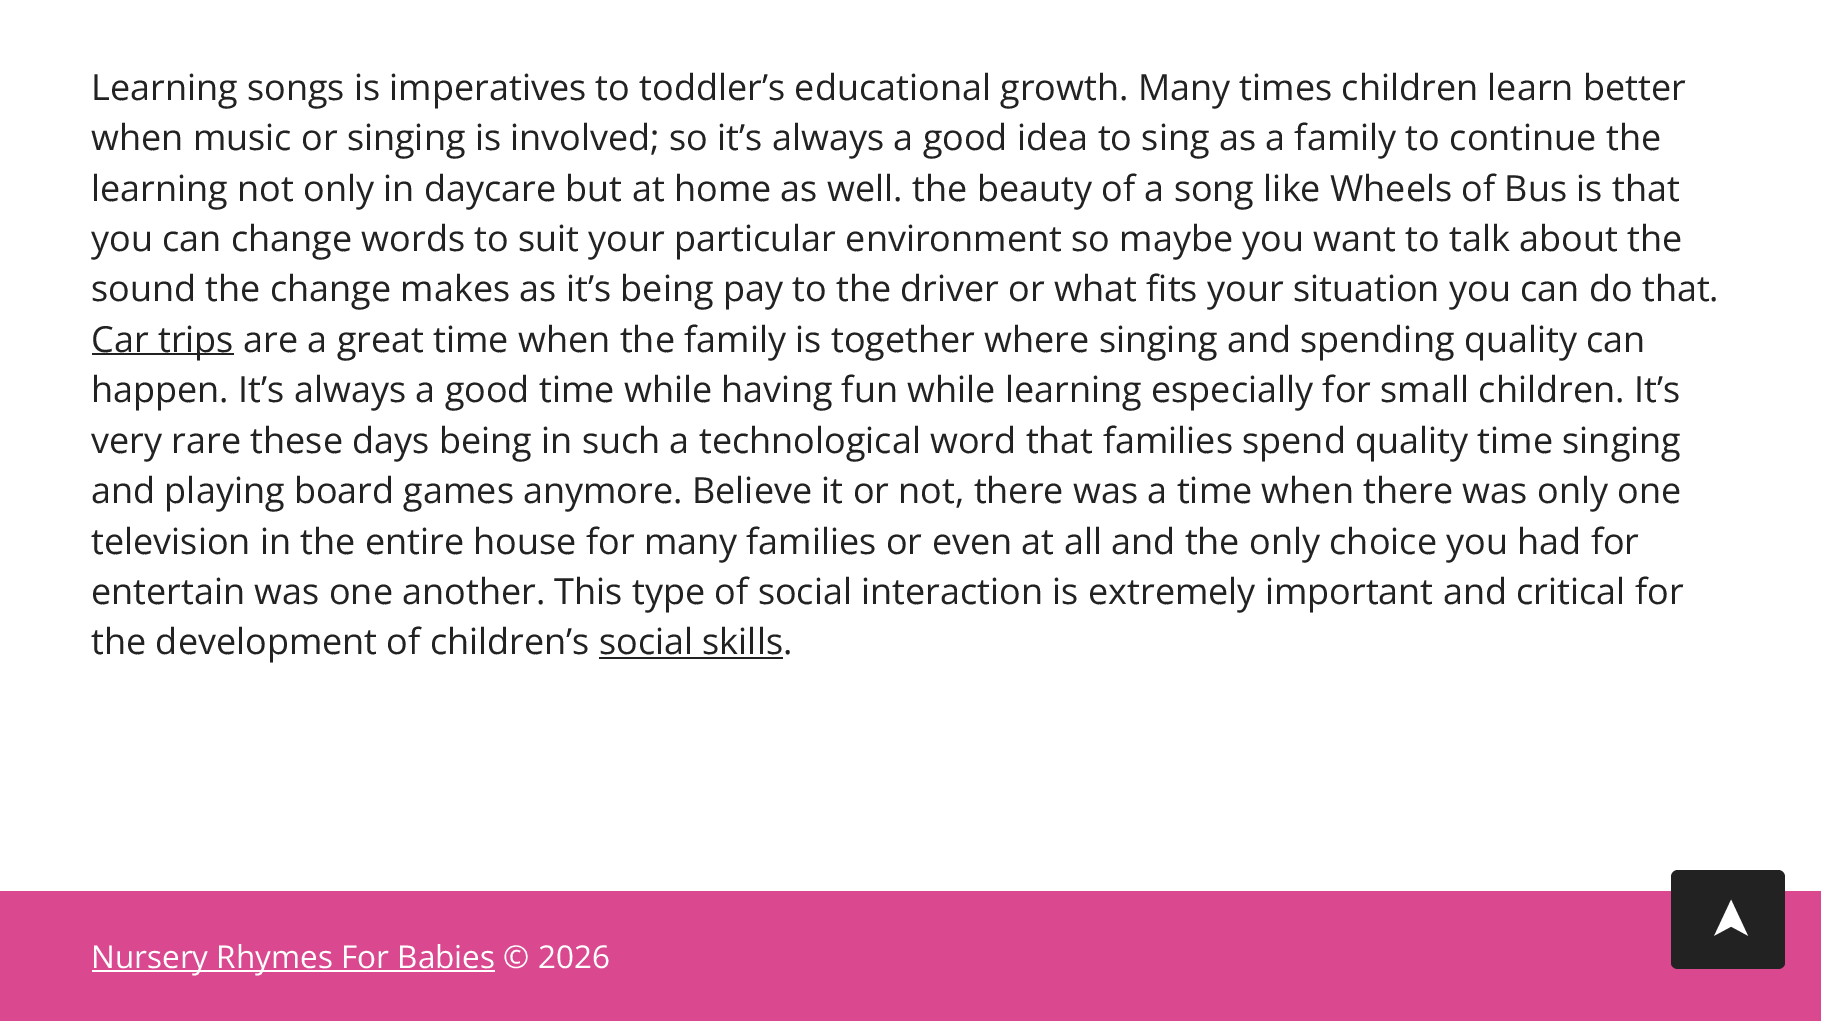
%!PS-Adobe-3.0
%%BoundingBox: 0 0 1821 1021
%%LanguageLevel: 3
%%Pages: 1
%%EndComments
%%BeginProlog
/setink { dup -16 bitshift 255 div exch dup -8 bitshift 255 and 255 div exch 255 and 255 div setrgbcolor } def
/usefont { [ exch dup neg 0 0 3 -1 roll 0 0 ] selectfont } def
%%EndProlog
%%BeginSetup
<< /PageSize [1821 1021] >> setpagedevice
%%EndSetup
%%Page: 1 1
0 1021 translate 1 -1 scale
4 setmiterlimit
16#FFFFFF setink
0 0 1821 1021 rectfill
/OpenSans-Regular 36 usefont
16#222222 setink
[
    [(Learning songs is imperatives to toddler’s educational growth. Many times children learn better) 91 100]
    [(when music or singing is involved; so it’s always a good idea to sing as a family to continue the) 91 150]
    [(learning not only in daycare but at home as well. the beauty of a song like Wheels of Bus is that) 91 201]
    [(you can change words to suit your particular environment so maybe you want to talk about the) 91 251]
    [(sound the change makes as it’s being pay to the driver or what fits your situation you can do that.) 91 301]
] { aload pop moveto show } forall
92 353 142 2 rectfill
[
    [(Car trips are a great time when the family is together where singing and spending quality can) 91 352]
    [(happen. It’s always a good time while having fun while learning especially for small children. It’s) 91 402]
    [(very rare these days being in such a technological word that families spend quality time singing) 91 453]
    [(and playing board games anymore. Believe it or not, there was a time when there was only one) 91 503]
    [(television in the entire house for many families or even at all and the only choice you had for) 91 554]
    [(entertain was one another. This type of social interaction is extremely important and critical for) 91 604]
    [(the development of children’s social skills.) 91 654]
] { aload pop moveto show } forall
[
    [599 657 184 2 16#222222]
    [0 891 1821 130 16#DA4990]
    [92 970 403 2 16#FFFFFF]
] { aload pop setink rectfill } forall
/OpenSans-Regular 31.5 usefont
91 968 moveto (Nursery Rhymes For Babies © 2026) show
16#222222 setink
1671 963 moveto 1671 877 lineto 1671 873 1674 870 1678 870 curveto 1778 870 lineto 1782 870 1785 873 1785 877 curveto 1785 963 lineto 1785 966 1782 969 1778 969 curveto 1678 969 lineto 1674 969 1671 966 1671 963 curveto closepath fill
/DejaVuSans-Regular 54 usefont
16#FFFFFF setink
gsave 1748 942 translate -90 rotate 0 0 moveto (➤) show grestore
showpage
%%EOF
